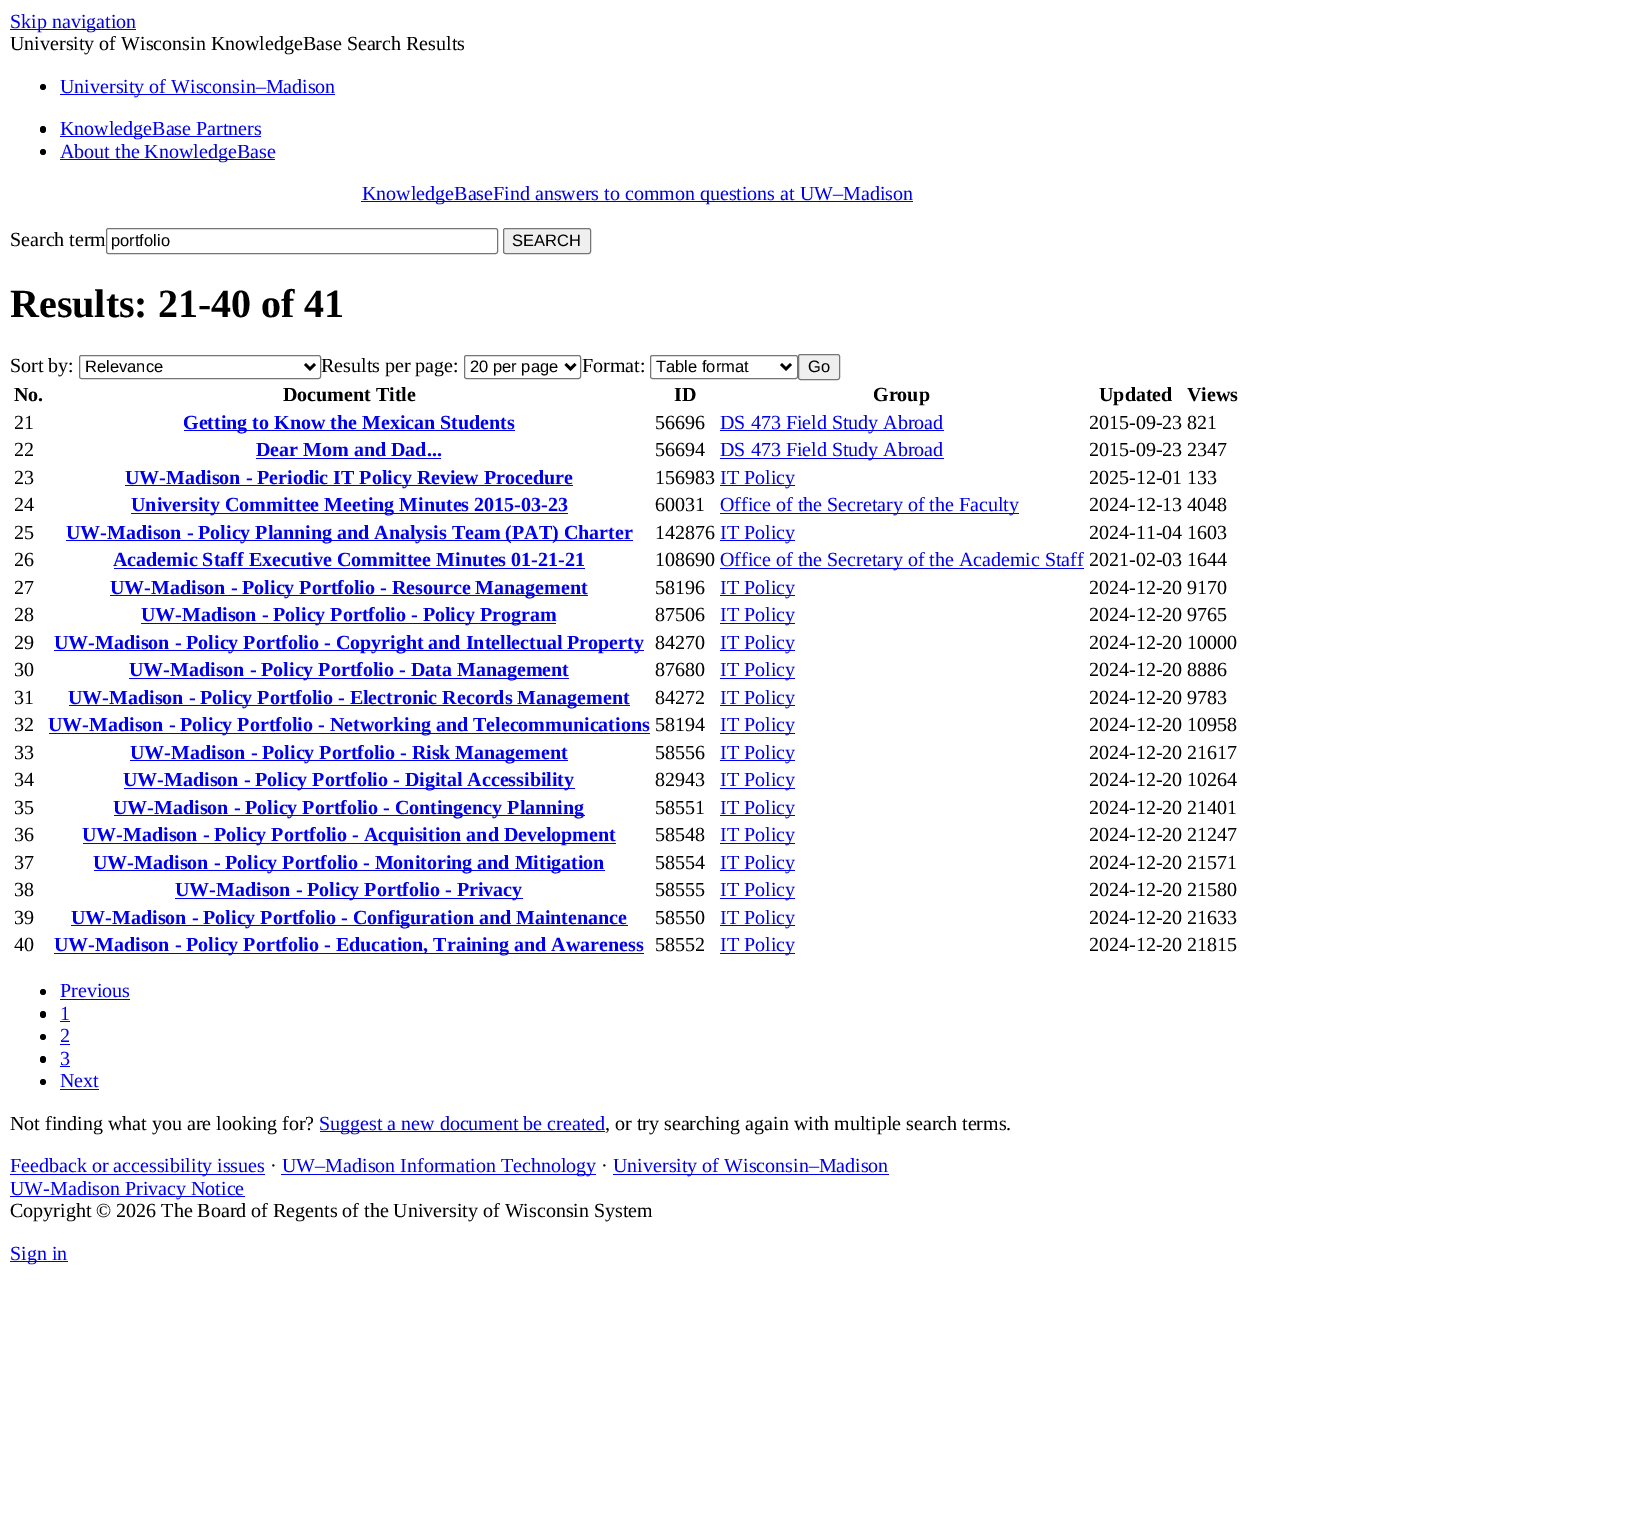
%!PS-Adobe-3.0
%%BoundingBox: 0 0 1649 1528
%%LanguageLevel: 3
%%Pages: 1
%%EndComments
%%BeginProlog
/setink { dup -16 bitshift 255 div exch dup -8 bitshift 255 and 255 div exch 255 and 255 div setrgbcolor } def
/usefont { [ exch dup neg 0 0 3 -1 roll 0 0 ] selectfont } def
/disc { newpath 0 360 arc closepath } def
/rrect { 5 dict begin { /r /h /w /y /x } { exch def } forall
  x r add y moveto x w add y 2 copy h add r arct x w add y h add x 1 index r arct
  x y h add x y r arct x y 2 copy exch w add exch r arct closepath end } def
%%EndProlog
%%BeginSetup
<< /PageSize [1649 1528] >> setpagedevice
%%EndSetup
%%Page: 1 1
0 1528 translate 1 -1 scale
4 setmiterlimit
16#FFFFFF setink
0 0 1649 1528 rectfill
16#0000EE setink
10 29 126 1 rectfill
/LiberationSerif-Regular 20 usefont
10 28 moveto (Skip navigation) show
16#000000 setink
10 50 moveto (University of Wisconsin KnowledgeBase Search Results) show
43 87 3 disc fill
16#0000EE setink
60 94 106 1 rectfill
60 93 moveto (University of Wisconsin–Madison) show
166 94 169 1 rectfill
16#000000 setink
40 126 6 7 3 rrect fill
16#0000EE setink
60 136 201 1 rectfill
60 135 moveto (KnowledgeBase Partners) show
16#000000 setink
43 152 3 disc fill
16#0000EE setink
60 159 215 1 rectfill
60 158 moveto (About the KnowledgeBase) show
361 201 552 1 rectfill
362 200 moveto (KnowledgeBaseFind answers to common questions at UW–Madison) show
16#000000 setink
10 246 moveto (Search term) show
16#767676 setink
106.5 228.5 391 25 2 rrect stroke
/LiberationSans-Regular 16.5 usefont
16#000000 setink
111 246 moveto (portfolio) show
16#EFEFEF setink
503.5 228.5 87 25 2 rrect gsave fill grestore
16#767676 setink
stroke
16#000000 setink
512 246 moveto (SEARCH) show
/LiberationSerif-Bold 40 usefont
10 317 moveto (Results: 21-40 of 41) show
/LiberationSerif-Regular 20 usefont
10 372 moveto (Sort by:) show
16#767676 setink
79.5 355.5 241 23 2 rrect stroke
16#000000 setink
2.5 setlinewidth
305 364 moveto 310 369 lineto 315 364 lineto stroke
/LiberationSans-Regular 16.5 usefont
85 372 moveto (Relevance) show
/LiberationSerif-Regular 20 usefont
321 372 moveto (Results per page:) show
16#767676 setink
1 setlinewidth
464.5 355.5 116 23 2 rrect stroke
16#000000 setink
2.5 setlinewidth
565.5 364 moveto 570.5 369 lineto 575.5 364 lineto stroke
/LiberationSans-Regular 16.5 usefont
470 372 moveto (20 per page) show
/LiberationSerif-Regular 20 usefont
582 372 moveto (Format:) show
16#767676 setink
1 setlinewidth
650.5 355.5 147 23 2 rrect stroke
16#000000 setink
2.5 setlinewidth
781 364 moveto 786 369 lineto 791 364 lineto stroke
/LiberationSans-Regular 16.5 usefont
656 372 moveto (Table format) show
16#EFEFEF setink
798.5 354.5 41 25 2 rrect gsave fill grestore
16#767676 setink
1 setlinewidth
stroke
16#000000 setink
808 372 moveto (Go) show
/LiberationSerif-Bold 20 usefont
[
    [(No.) 14 401]
    [(Document Title) 283 401]
    [(ID) 674 401]
    [(Group) 873 401]
    [(Updated) 1099 401]
    [(Views) 1187 401]
] { aload pop moveto show } forall
/LiberationSerif-Regular 20 usefont
14 429 moveto (21) show
16#0000EE setink
184 430 331 1 rectfill
/LiberationSerif-Bold 20 usefont
183 429 moveto (Getting to Know the Mexican Students) show
/LiberationSerif-Regular 20 usefont
16#000000 setink
655 429 moveto (56696) show
16#0000EE setink
720 430 224 1 rectfill
720 429 moveto (DS 473 Field Study Abroad) show
16#000000 setink
1089 429 moveto (2015-09-23 821) show
14 456 moveto (22) show
/LiberationSerif-Bold 20 usefont
16#0000EE setink
256 456 moveto (Dear Mom and Dad...) show
256 458 185 1 rectfill
/LiberationSerif-Regular 20 usefont
16#000000 setink
655 456 moveto (56694) show
16#0000EE setink
720 458 224 1 rectfill
720 456 moveto (DS 473 Field Study Abroad) show
16#000000 setink
1089 456 moveto (2015-09-23 2347) show
14 484 moveto (23) show
16#0000EE setink
125 485 448 1 rectfill
/LiberationSerif-Bold 20 usefont
125 484 moveto (UW-Madison - Periodic IT Policy Review Procedure) show
/LiberationSerif-Regular 20 usefont
16#000000 setink
655 484 moveto (156983) show
16#0000EE setink
720 485 75 1 rectfill
720 484 moveto (IT Policy) show
16#000000 setink
1089 484 moveto (2025-12-01 133) show
14 511 moveto (24) show
16#0000EE setink
131 513 437 1 rectfill
/LiberationSerif-Bold 20 usefont
131 511 moveto (University Committee Meeting Minutes 2015-03-23) show
/LiberationSerif-Regular 20 usefont
16#000000 setink
655 511 moveto (60031) show
16#0000EE setink
720 513 299 1 rectfill
720 511 moveto (Office of the Secretary of the Faculty) show
16#000000 setink
1089 511 moveto (2024-12-13 4048) show
14 539 moveto (25) show
16#0000EE setink
66 540 567 1 rectfill
/LiberationSerif-Bold 20 usefont
66 539 moveto (UW-Madison - Policy Planning and Analysis Team \(PAT\) Charter) show
/LiberationSerif-Regular 20 usefont
16#000000 setink
655 539 moveto (142876) show
16#0000EE setink
720 540 75 1 rectfill
720 539 moveto (IT Policy) show
16#000000 setink
1089 539 moveto (2024-11-04 1603) show
14 566 moveto (26) show
/LiberationSerif-Bold 20 usefont
16#0000EE setink
113 566 moveto (Academic Staff Executive Committee Minutes 01-21-21) show
114 568 471 1 rectfill
/LiberationSerif-Regular 20 usefont
16#000000 setink
655 566 moveto (108690) show
16#0000EE setink
720 568 364 1 rectfill
720 566 moveto (Office of the Secretary of the Academic Staff) show
16#000000 setink
1089 566 moveto (2021-02-03 1644) show
14 594 moveto (27) show
16#0000EE setink
110 595 478 1 rectfill
/LiberationSerif-Bold 20 usefont
110 594 moveto (UW-Madison - Policy Portfolio - Resource Management) show
/LiberationSerif-Regular 20 usefont
16#000000 setink
655 594 moveto (58196) show
16#0000EE setink
720 595 75 1 rectfill
720 594 moveto (IT Policy) show
16#000000 setink
1089 594 moveto (2024-12-20 9170) show
14 621 moveto (28) show
16#0000EE setink
141 623 415 1 rectfill
/LiberationSerif-Bold 20 usefont
141 621 moveto (UW-Madison - Policy Portfolio - Policy Program) show
/LiberationSerif-Regular 20 usefont
16#000000 setink
655 621 moveto (87506) show
16#0000EE setink
720 623 75 1 rectfill
720 621 moveto (IT Policy) show
16#000000 setink
1089 621 moveto (2024-12-20 9765) show
14 649 moveto (29) show
16#0000EE setink
54 650 590 1 rectfill
/LiberationSerif-Bold 20 usefont
54 649 moveto (UW-Madison - Policy Portfolio - Copyright and Intellectual Property) show
/LiberationSerif-Regular 20 usefont
16#000000 setink
655 649 moveto (84270) show
16#0000EE setink
720 650 75 1 rectfill
720 649 moveto (IT Policy) show
16#000000 setink
1089 649 moveto (2024-12-20 10000) show
14 676 moveto (30) show
16#0000EE setink
129 678 440 1 rectfill
/LiberationSerif-Bold 20 usefont
129 676 moveto (UW-Madison - Policy Portfolio - Data Management) show
/LiberationSerif-Regular 20 usefont
16#000000 setink
655 676 moveto (87680) show
16#0000EE setink
720 678 75 1 rectfill
720 676 moveto (IT Policy) show
16#000000 setink
1089 676 moveto (2024-12-20 8886) show
14 704 moveto (31) show
16#0000EE setink
69 705 561 1 rectfill
/LiberationSerif-Bold 20 usefont
68 704 moveto (UW-Madison - Policy Portfolio - Electronic Records Management) show
/LiberationSerif-Regular 20 usefont
16#000000 setink
655 704 moveto (84272) show
16#0000EE setink
720 705 75 1 rectfill
720 704 moveto (IT Policy) show
16#000000 setink
1089 704 moveto (2024-12-20 9783) show
14 731 moveto (32) show
16#0000EE setink
49 733 601 1 rectfill
/LiberationSerif-Bold 20 usefont
48 731 moveto (UW-Madison - Policy Portfolio - Networking and Telecommunications) show
/LiberationSerif-Regular 20 usefont
16#000000 setink
655 731 moveto (58194) show
16#0000EE setink
720 733 75 1 rectfill
720 731 moveto (IT Policy) show
16#000000 setink
1089 731 moveto (2024-12-20 10958) show
14 759 moveto (33) show
16#0000EE setink
130 760 438 1 rectfill
/LiberationSerif-Bold 20 usefont
130 759 moveto (UW-Madison - Policy Portfolio - Risk Management) show
/LiberationSerif-Regular 20 usefont
16#000000 setink
655 759 moveto (58556) show
16#0000EE setink
720 760 75 1 rectfill
720 759 moveto (IT Policy) show
16#000000 setink
1089 759 moveto (2024-12-20 21617) show
14 786 moveto (34) show
16#0000EE setink
124 788 451 1 rectfill
/LiberationSerif-Bold 20 usefont
123 786 moveto (UW-Madison - Policy Portfolio - Digital Accessibility) show
/LiberationSerif-Regular 20 usefont
16#000000 setink
655 786 moveto (82943) show
16#0000EE setink
720 788 75 1 rectfill
720 786 moveto (IT Policy) show
16#000000 setink
1089 786 moveto (2024-12-20 10264) show
14 814 moveto (35) show
16#0000EE setink
114 815 471 1 rectfill
/LiberationSerif-Bold 20 usefont
113 814 moveto (UW-Madison - Policy Portfolio - Contingency Planning) show
/LiberationSerif-Regular 20 usefont
16#000000 setink
655 814 moveto (58551) show
16#0000EE setink
720 815 75 1 rectfill
720 814 moveto (IT Policy) show
16#000000 setink
1089 814 moveto (2024-12-20 21401) show
14 841 moveto (36) show
16#0000EE setink
83 843 533 1 rectfill
/LiberationSerif-Bold 20 usefont
82 841 moveto (UW-Madison - Policy Portfolio - Acquisition and Development) show
/LiberationSerif-Regular 20 usefont
16#000000 setink
655 841 moveto (58548) show
16#0000EE setink
720 843 75 1 rectfill
720 841 moveto (IT Policy) show
16#000000 setink
1089 841 moveto (2024-12-20 21247) show
14 869 moveto (37) show
16#0000EE setink
94 870 511 1 rectfill
/LiberationSerif-Bold 20 usefont
93 869 moveto (UW-Madison - Policy Portfolio - Monitoring and Mitigation) show
/LiberationSerif-Regular 20 usefont
16#000000 setink
655 869 moveto (58554) show
16#0000EE setink
720 870 75 1 rectfill
720 869 moveto (IT Policy) show
16#000000 setink
1089 869 moveto (2024-12-20 21571) show
14 896 moveto (38) show
16#0000EE setink
175 898 348 1 rectfill
/LiberationSerif-Bold 20 usefont
175 896 moveto (UW-Madison - Policy Portfolio - Privacy) show
/LiberationSerif-Regular 20 usefont
16#000000 setink
655 896 moveto (58555) show
16#0000EE setink
720 898 75 1 rectfill
720 896 moveto (IT Policy) show
16#000000 setink
1089 896 moveto (2024-12-20 21580) show
14 924 moveto (39) show
16#0000EE setink
71 925 557 1 rectfill
/LiberationSerif-Bold 20 usefont
71 924 moveto (UW-Madison - Policy Portfolio - Configuration and Maintenance) show
/LiberationSerif-Regular 20 usefont
16#000000 setink
655 924 moveto (58550) show
16#0000EE setink
720 925 75 1 rectfill
720 924 moveto (IT Policy) show
16#000000 setink
1089 924 moveto (2024-12-20 21633) show
14 951 moveto (40) show
16#0000EE setink
54 953 590 1 rectfill
/LiberationSerif-Bold 20 usefont
54 951 moveto (UW-Madison - Policy Portfolio - Education, Training and Awareness) show
/LiberationSerif-Regular 20 usefont
16#000000 setink
655 951 moveto (58552) show
16#0000EE setink
720 953 75 1 rectfill
720 951 moveto (IT Policy) show
16#000000 setink
1089 951 moveto (2024-12-20 21815) show
43 992 3 disc fill
16#0000EE setink
60 997 moveto (Previous) show
60 999 70 1 rectfill
16#000000 setink
40 1011 6 7 3 rrect fill
16#0000EE setink
60 1020 moveto (1) show
60 1021 10 1 rectfill
16#000000 setink
43 1037 3 disc fill
16#0000EE setink
60 1042 moveto (2) show
60 1044 10 1 rectfill
16#000000 setink
40 1056 6 7 3 rrect fill
16#0000EE setink
60 1065 moveto (3) show
60 1066 10 1 rectfill
16#000000 setink
43 1082 3 disc fill
16#0000EE setink
60 1087 moveto (Next) show
60 1089 39 1 rectfill
16#000000 setink
10 1130 moveto (Not finding what you are looking for?) show
16#0000EE setink
320 1131 285 1 rectfill
319 1130 moveto (Suggest a new document be created) show
16#000000 setink
605 1130 moveto (, or try searching again with multiple search terms.) show
16#0000EE setink
10 1174 255 1 rectfill
10 1172 moveto (Feedback or accessibility issues) show
16#000000 setink
270 1172 moveto (·) show
16#0000EE setink
281 1174 315 1 rectfill
282 1172 moveto (UW–Madison Information Technology) show
16#000000 setink
601 1172 moveto (·) show
16#0000EE setink
613 1174 276 1 rectfill
613 1172 moveto (University of Wisconsin–Madison) show
10 1196 235 1 rectfill
10 1195 moveto (UW-Madison Privacy Notice) show
16#000000 setink
10 1217 moveto (Copyright © 2026 The Board of Regents of the University of Wisconsin System) show
16#0000EE setink
10 1261 58 1 rectfill
10 1260 moveto (Sign in) show
showpage
%%EOF
